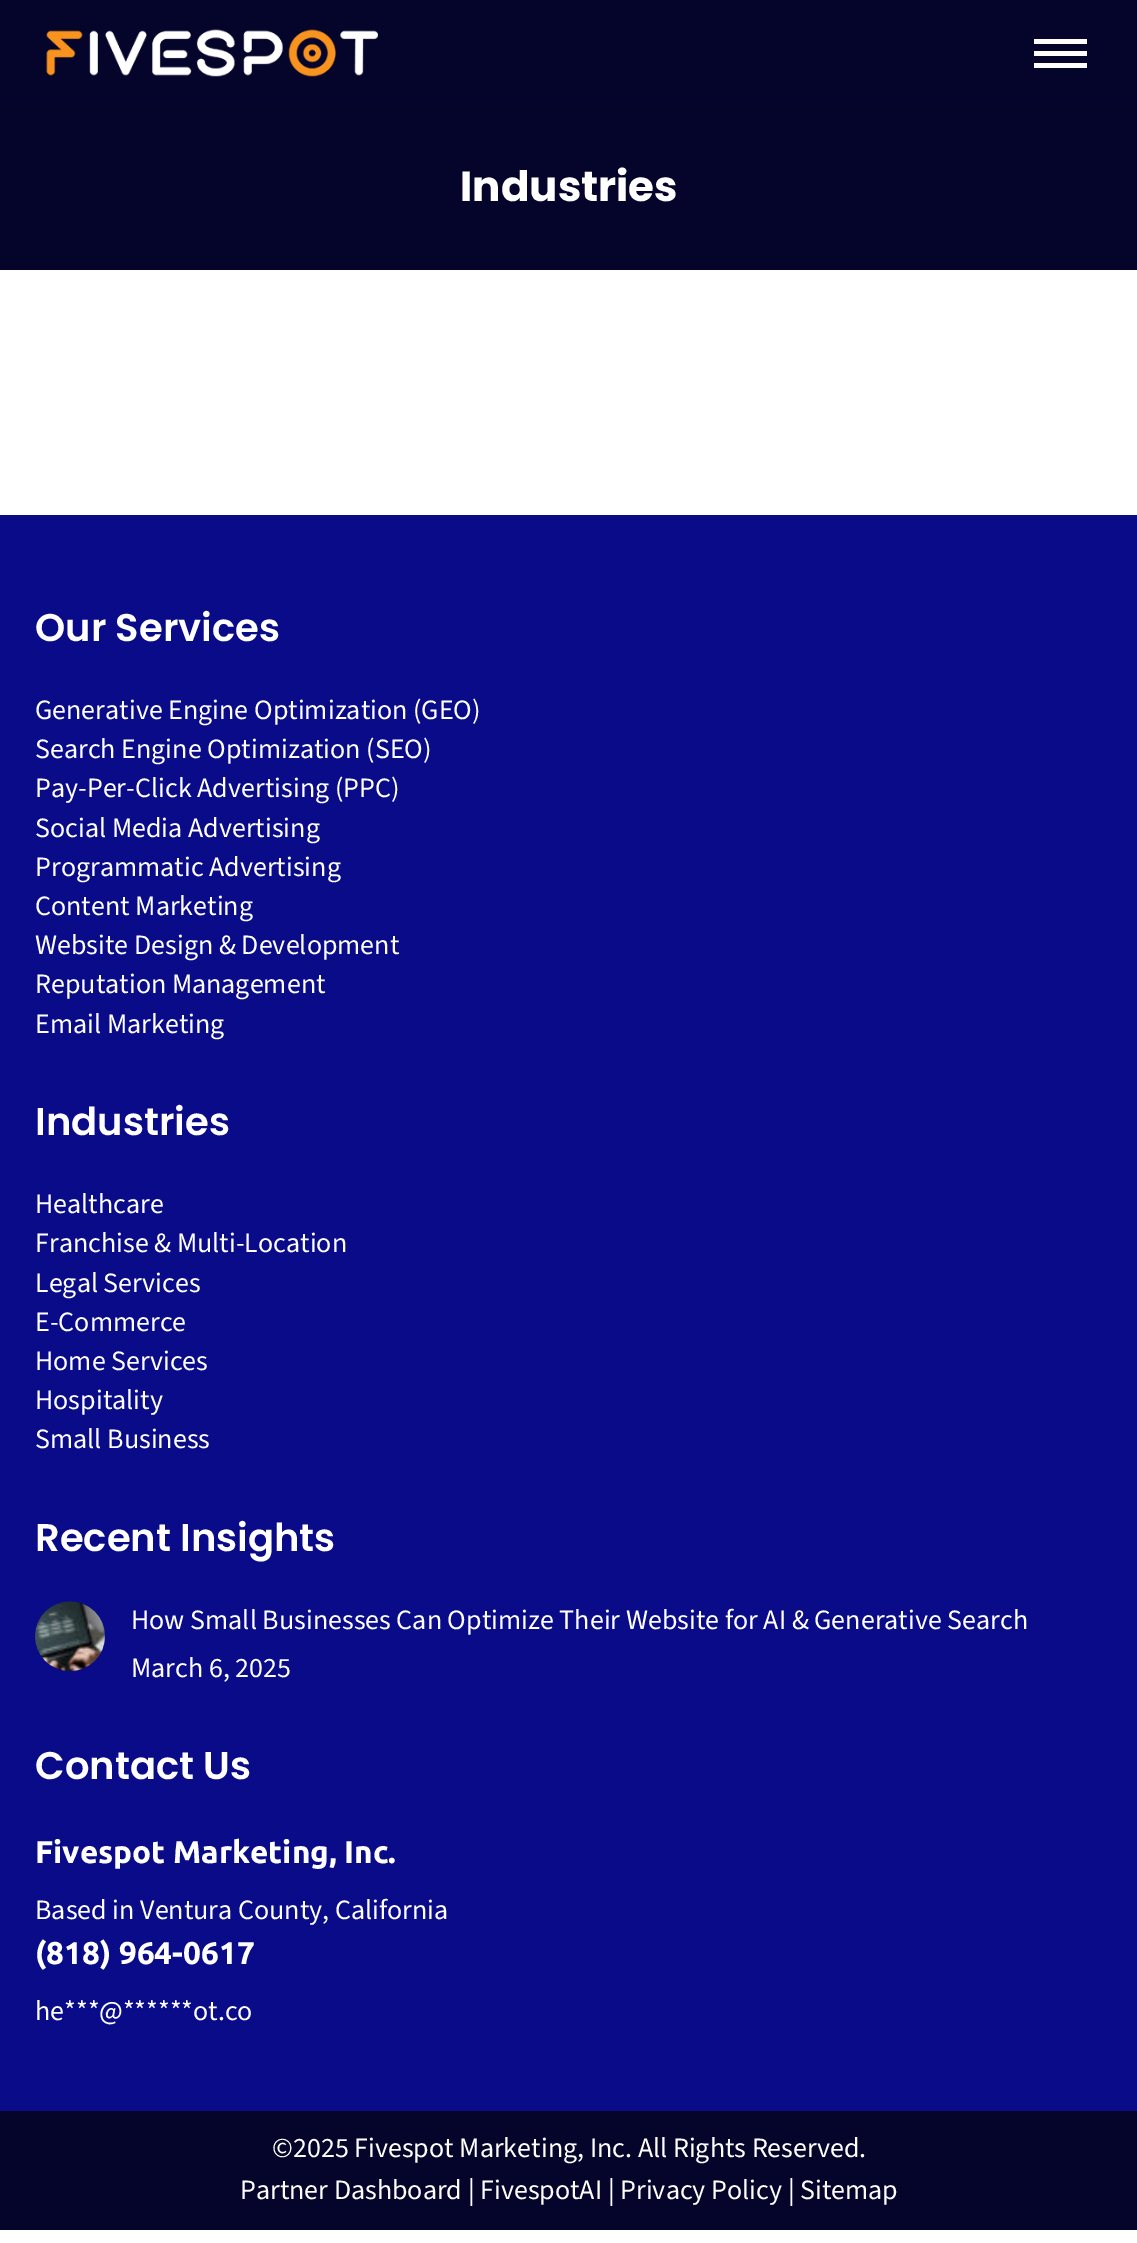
%!PS-Adobe-3.0
%%BoundingBox: 0 0 1137 2243
%%LanguageLevel: 3
%%Pages: 1
%%EndComments
%%BeginProlog
/setink { dup -16 bitshift 255 div exch dup -8 bitshift 255 and 255 div exch 255 and 255 div setrgbcolor } def
/usefont { [ exch dup neg 0 0 3 -1 roll 0 0 ] selectfont } def
/setalpha { dup .setfillconstantalpha .setstrokeconstantalpha } def
/rrect { 5 dict begin { /r /h /w /y /x } { exch def } forall
  x r add y moveto x w add y 2 copy h add r arct x w add y h add x 1 index r arct
  x y h add x y r arct x y 2 copy exch w add exch r arct closepath end } def
/softshadow { 12 dict begin { /a /b /q /h /w /y /x } { exch def } forall gsave /was 0 def
  9 -2 -9 { dup b mul 4 div /e exch def 1 sub .425 mul 2.718 exch exp 1 add a .99 .min exch div /now exch def
    1 1 now sub 1 was sub div sub setalpha /was now def
    w h .min e 2 mul add 0 gt { x e sub y e sub w e 2 mul add h e 2 mul add
      q e add b .6 mul add w h .min 2 div e add .min 0 .max rrect fill } if } for grestore end } def
/drawimage { 5 dict begin { /h /w /y /x /name } { exch def } forall
  gsave x y translate w h scale
  w h 8 [w 0 0 h 0 0] name (r) file false 3 colorimage grestore end } def
%%EndProlog
%%BeginSetup
<< /PageSize [1137 2243] /PageUsesTransparency true >> setpagedevice
%%EndSetup
%%Page: 1 1
0 .pushpdf14devicefilter
0 2243 translate 1 -1 scale
4 setmiterlimit
16#FFFFFF setink
0 0 1137 2243 rectfill
16#05052B setink
0 105 1137 165 rectfill
16#000000 setink
-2 -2 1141 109 0 13 0.07 softshadow
16#05052B setink
0 0 1137 105 rectfill
(img1.raw) 46 29 332 48 drawimage
[
    [1034 39 53 5 16#FFFFFF]
    [1034 51 53 5 16#FFFFFF]
    [1034 63 53 5 16#FFFFFF]
] { aload pop setink rectfill } forall
/Poppins-Bold 42 usefont
460 201 moveto (Industries) show
16#0A0B88 setink
0 515 1137 1596 rectfill
/Poppins-SemiBold 38.5 usefont
16#FFFFFF setink
35 641 moveto (Our Services) show
/SourceSans3-Regular 28 usefont
[
    [(Generative Engine Optimization \(GEO\)) 35 719]
    [(Search Engine Optimization \(SEO\)) 35 758]
    [(Pay-Per-Click Advertising \(PPC\)) 35 797]
    [(Social Media Advertising) 35 837]
    [(Programmatic Advertising) 35 876]
    [(Content Marketing) 35 915]
    [(Website Design & Development) 35 954]
    [(Reputation Management) 35 993]
    [(Email Marketing) 35 1033]
] { aload pop moveto show } forall
/Poppins-SemiBold 38.5 usefont
35 1135 moveto (Industries) show
/SourceSans3-Regular 28 usefont
[
    [(Healthcare) 35 1213]
    [(Franchise & Multi-Location) 35 1252]
    [(Legal Services) 35 1292]
    [(E-Commerce) 35 1331]
    [(Home Services) 35 1370]
    [(Hospitality) 35 1409]
    [(Small Business) 35 1448]
] { aload pop moveto show } forall
/Poppins-SemiBold 38.5 usefont
35 1551 moveto (Recent Insights) show
(img2.raw) 35 1601 70 71 drawimage
/SourceSans3-Regular 28 usefont
131 1629 moveto (How Small Businesses Can Optimize Their Website for AI & Generative Search) show
131 1677 moveto (March 6, 2025) show
/Poppins-SemiBold 38.5 usefont
35 1779 moveto (Contact Us) show
/Ubuntu-Bold 31.5 usefont
35 1863 moveto (Fivespot Marketing, Inc.) show
/SourceSans3-Regular 28 usefont
35 1919 moveto (Based in Ventura County, California) show
/Ubuntu-Bold 31.5 usefont
35 1964 moveto (\(818\) 964-0617) show
/SourceSans3-Regular 28 usefont
[
    [(he***) 35 2020]
    [(@******) 99 2020]
    [(ot.co) 193 2020]
] { aload pop moveto show } forall
16#05052B setink
0 2111 1137 119 rectfill
16#FFFFFF setink
272 2157 moveto (©2025 Fivespot Marketing, Inc. All Rights Reserved.) show
240 2199 moveto (Partner Dashboard | FivespotAI | Privacy Policy | Sitemap) show
.poppdf14devicefilter showpage
%%EOF
